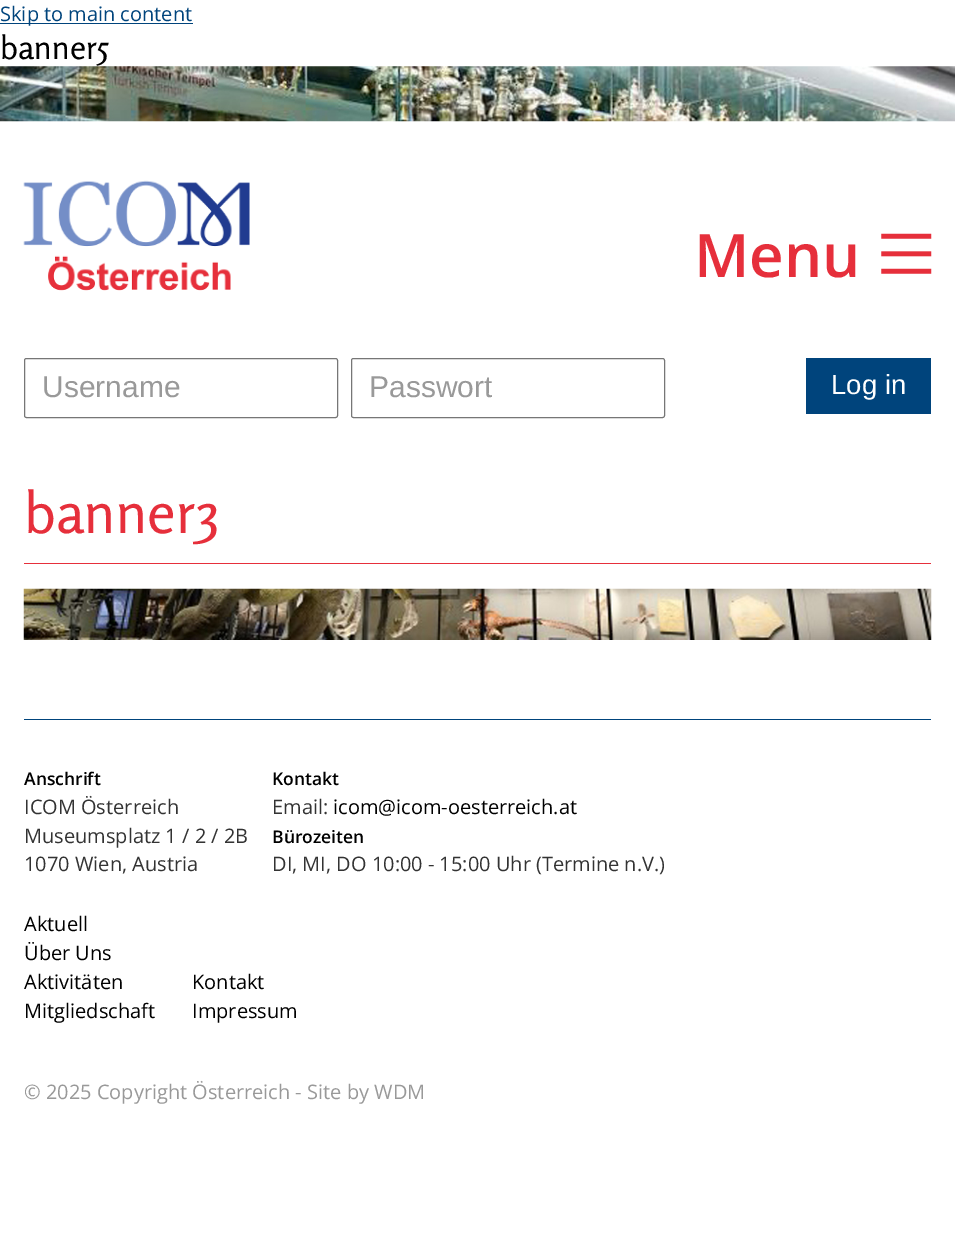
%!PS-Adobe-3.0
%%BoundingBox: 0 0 955 1250
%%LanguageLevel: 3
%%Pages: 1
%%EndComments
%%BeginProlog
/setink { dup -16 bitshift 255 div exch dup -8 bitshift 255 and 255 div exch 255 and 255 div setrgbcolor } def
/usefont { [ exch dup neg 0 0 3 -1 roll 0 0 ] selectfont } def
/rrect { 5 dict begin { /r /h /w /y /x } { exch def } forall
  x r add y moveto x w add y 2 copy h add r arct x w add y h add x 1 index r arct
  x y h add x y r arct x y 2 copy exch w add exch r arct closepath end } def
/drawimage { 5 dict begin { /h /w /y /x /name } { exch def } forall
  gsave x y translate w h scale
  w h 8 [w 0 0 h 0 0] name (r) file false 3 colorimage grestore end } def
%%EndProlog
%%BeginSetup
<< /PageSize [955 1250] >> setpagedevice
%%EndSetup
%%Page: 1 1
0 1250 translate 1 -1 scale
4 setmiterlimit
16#FFFFFF setink
0 0 955 1250 rectfill
16#00447C setink
0 23 193 1 rectfill
/OpenSans-Regular 20 usefont
0 21 moveto (Skip to main content) show
/Rosario-Regular 32.5 usefont
16#000000 setink
0 59 moveto (banner5) show
(img1.raw) 0 66 955 56 drawimage
(img2.raw) 23 180 227 111 drawimage
(img3.raw) 881 233 51 41 drawimage
/OpenSans-SemiBold 60 usefont
16#E62F3B setink
694 277 moveto (Menu) show
16#767676 setink
24.5 358.5 313 59 2 rrect stroke
/LiberationSans-Regular 30 usefont
16#999999 setink
42 397 moveto (Username) show
16#767676 setink
351.5 358.5 313 59 2 rrect stroke
16#999999 setink
369 397 moveto (Passwort) show
16#00447C setink
806 358 125 56 rectfill
/LiberationSans-Regular 27.5 usefont
16#FFFFFF setink
831 394 moveto (Log in) show
16#E62F3B setink
24 563 907 1 rectfill
/Rosario-Regular 57.5 usefont
24 533 moveto (banner3) show
(img4.raw) 23 588 909 52 drawimage
16#00447C setink
24 719 907 1 rectfill
/OpenSans-SemiBold 17.5 usefont
16#000000 setink
24 785 moveto (Anschrift) show
/OpenSans-Regular 20 usefont
16#333333 setink
[
    [(ICOM Österreich) 24 814]
    [(Museumsplatz 1 / 2 / 2B) 24 843]
    [(1070 Wien, Austria) 24 871]
] { aload pop moveto show } forall
/OpenSans-SemiBold 17.5 usefont
16#000000 setink
272 785 moveto (Kontakt) show
/OpenSans-Regular 20 usefont
16#333333 setink
272 814 moveto (Email:) show
16#000000 setink
333 814 moveto (icom@icom-oesterreich.at) show
/OpenSans-SemiBold 17.5 usefont
272 843 moveto (Bürozeiten) show
/OpenSans-Regular 20 usefont
16#333333 setink
272 871 moveto (DI, MI, DO 10:00 - 15:00 Uhr \(Termine n.V.\)) show
16#000000 setink
[
    [(Aktuell) 24 931]
    [(Über Uns) 24 960]
    [(Aktivitäten) 24 989]
    [(Mitgliedschaft) 24 1018]
    [(Kontakt) 192 989]
    [(Impressum) 192 1018]
] { aload pop moveto show } forall
16#999999 setink
24 1099 moveto (© 2025 Copyright Österreich - Site by WDM) show
showpage
%%EOF
